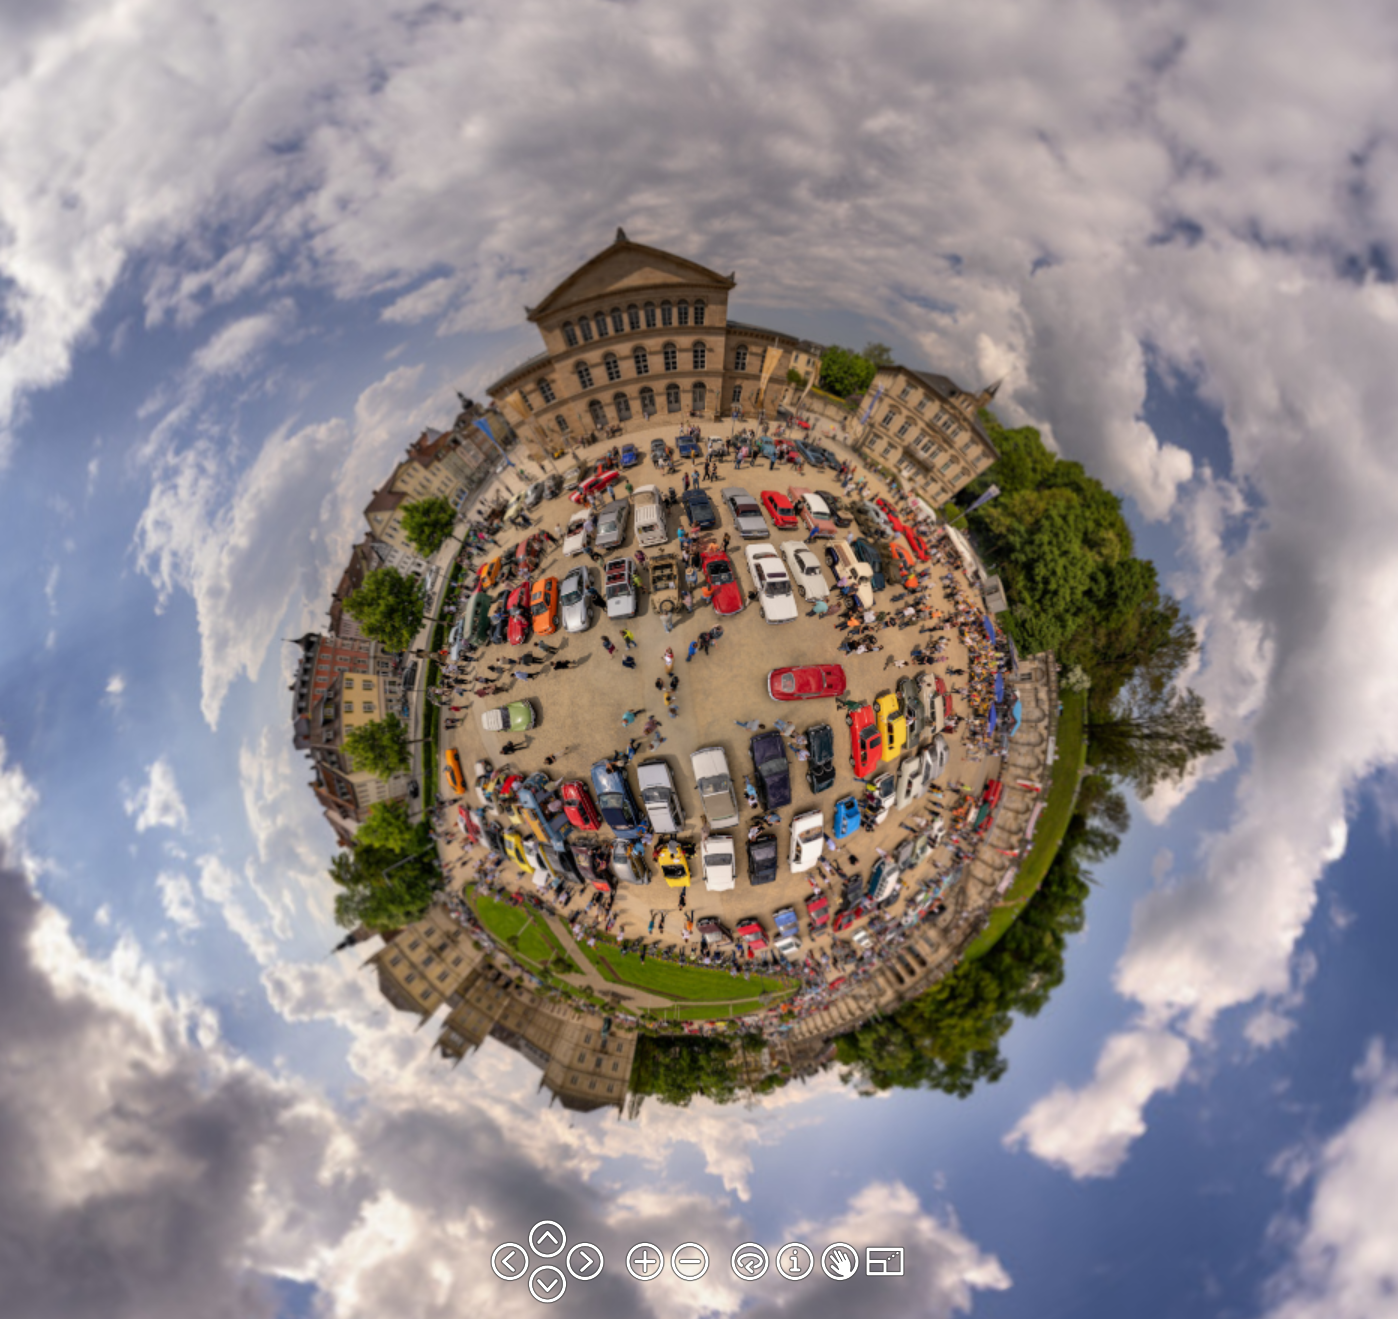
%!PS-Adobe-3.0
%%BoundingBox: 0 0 1398 1319
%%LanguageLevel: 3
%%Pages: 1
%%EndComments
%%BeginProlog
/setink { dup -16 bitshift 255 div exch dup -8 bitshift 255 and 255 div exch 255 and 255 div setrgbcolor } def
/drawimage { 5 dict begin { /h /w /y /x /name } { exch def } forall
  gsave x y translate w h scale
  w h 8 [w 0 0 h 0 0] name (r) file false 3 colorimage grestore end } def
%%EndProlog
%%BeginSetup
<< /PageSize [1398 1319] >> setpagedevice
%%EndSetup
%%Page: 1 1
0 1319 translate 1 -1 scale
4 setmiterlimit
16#FFFFFF setink
0 0 1398 1319 rectfill
(img1.raw) 0 0 1398 1319 drawimage
(img3.raw) 527 1219 41 40 drawimage
(img11.raw) 527 1264 41 40 drawimage
(img2.raw) 490 1241 40 41 drawimage
(img4.raw) 565 1241 40 41 drawimage
(img5.raw) 625 1241 40 41 drawimage
(img6.raw) 670 1241 40 41 drawimage
(img7.raw) 730 1241 40 41 drawimage
(img8.raw) 775 1241 40 41 drawimage
(img9.raw) 820 1241 40 41 drawimage
(img10.raw) 865 1246 40 31 drawimage
showpage
%%EOF
